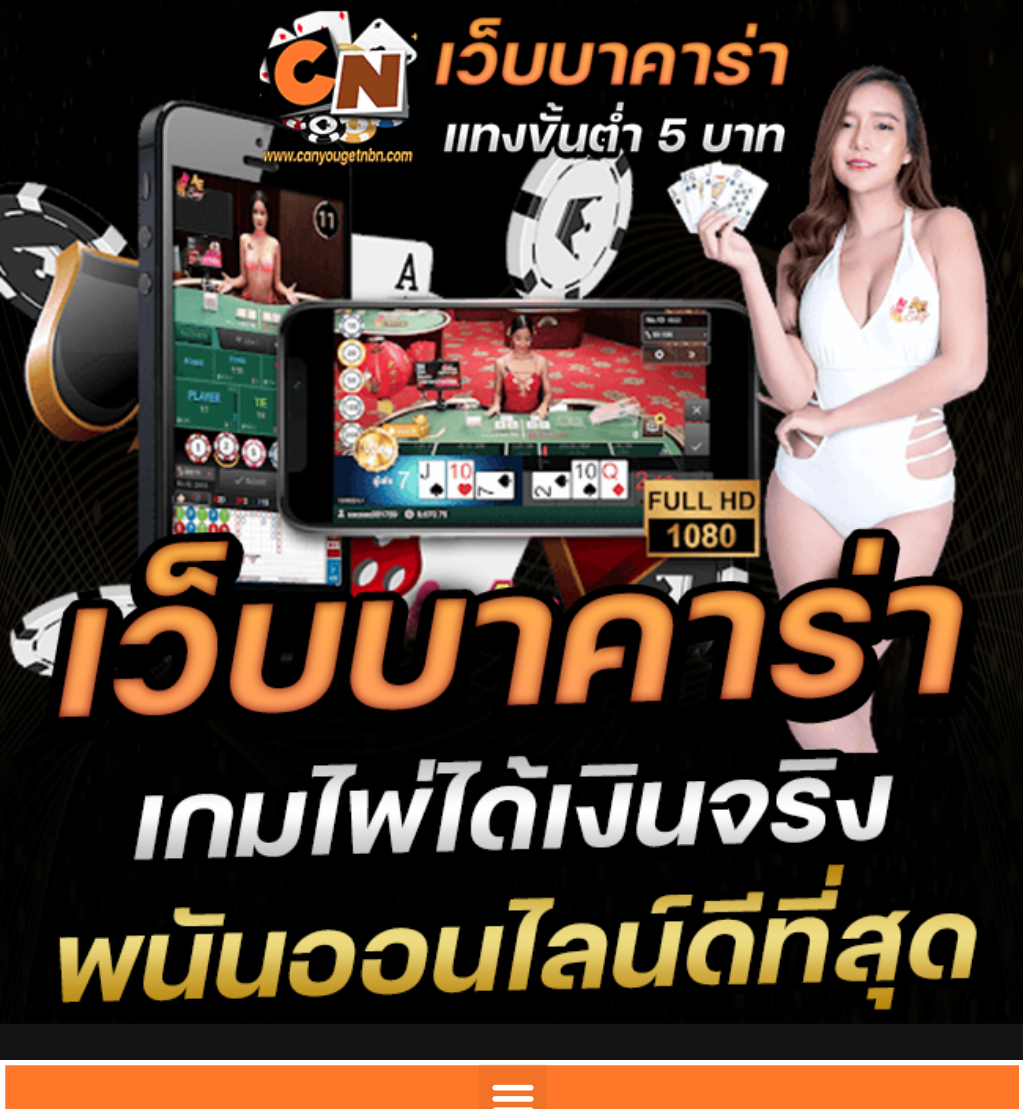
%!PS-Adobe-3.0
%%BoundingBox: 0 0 1023 1109
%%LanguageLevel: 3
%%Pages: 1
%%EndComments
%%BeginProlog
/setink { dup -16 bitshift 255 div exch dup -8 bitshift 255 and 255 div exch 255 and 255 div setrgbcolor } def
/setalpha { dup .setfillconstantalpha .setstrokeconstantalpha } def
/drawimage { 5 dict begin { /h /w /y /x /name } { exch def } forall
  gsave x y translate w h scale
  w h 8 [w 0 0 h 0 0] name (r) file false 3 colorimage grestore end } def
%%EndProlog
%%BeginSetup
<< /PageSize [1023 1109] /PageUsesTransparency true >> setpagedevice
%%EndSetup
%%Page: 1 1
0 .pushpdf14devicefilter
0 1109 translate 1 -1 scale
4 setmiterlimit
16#131313 setink
0 0 1023 1109 rectfill
(img1.raw) 0 0 1023 1024 drawimage
16#FF782A setink
2.5 1062.5 moveto 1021.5 1062.5 lineto 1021.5 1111.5 lineto 2.5 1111.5 lineto closepath gsave fill grestore
16#FFFFFF setink
5 setlinewidth
stroke
0.05 setalpha
16#000000 setink
479 1064 68 45 rectfill
1 setalpha
(img2.raw) 492 1084 42 25 drawimage
.poppdf14devicefilter showpage
%%EOF
